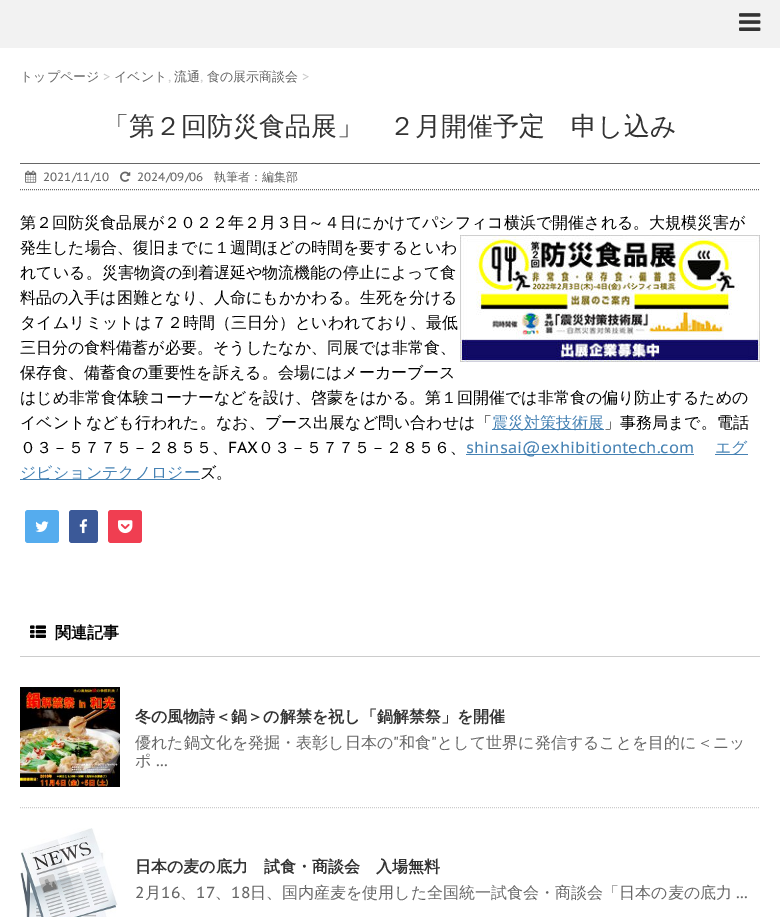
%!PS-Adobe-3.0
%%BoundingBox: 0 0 780 917
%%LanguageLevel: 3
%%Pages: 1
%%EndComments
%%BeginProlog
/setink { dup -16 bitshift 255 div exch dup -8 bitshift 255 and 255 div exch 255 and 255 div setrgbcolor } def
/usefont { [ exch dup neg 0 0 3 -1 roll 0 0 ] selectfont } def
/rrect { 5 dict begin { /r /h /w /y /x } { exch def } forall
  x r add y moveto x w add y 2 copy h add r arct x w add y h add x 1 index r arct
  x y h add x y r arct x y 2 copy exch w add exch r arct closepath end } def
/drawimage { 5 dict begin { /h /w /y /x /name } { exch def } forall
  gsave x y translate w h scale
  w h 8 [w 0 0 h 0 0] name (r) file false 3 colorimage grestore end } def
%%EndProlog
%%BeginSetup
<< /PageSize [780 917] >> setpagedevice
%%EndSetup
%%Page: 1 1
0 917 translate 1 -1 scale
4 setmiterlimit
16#F2F2F2 setink
0 0 780 917 rectfill
(img1.raw) 739 13 22 18 drawimage
16#FFFFFF setink
0 48 780 869 rectfill
/WenQuanYiZenHei-Medium 13 usefont
16#666666 setink
20 81 moveto (トップページ) show
/PTSansCaption-Regular 13 usefont
16#CCCCCC setink
103 81 moveto (>) show
/WenQuanYiZenHei-Medium 13 usefont
16#666666 setink
[
    [(イベント) 114 81]
    [(流通) 174 81]
    [(食の展示商談会) 207 81]
] { aload pop moveto show } forall
/PTSansCaption-Regular 13 usefont
16#CCCCCC setink
[
    [(>) 302 81]
    [(,) 168 81]
    [(,) 200 81]
] { aload pop moveto show } forall
/WenQuanYiZenHei-Medium 26 usefont
16#333333 setink
103 135 moveto (「第２回防災食品展」　２月開催予定　申し込み) show
16#666666 setink
20 163 740 1 rectfill
[1 1] 0 setdash
20 189.5 moveto 760 189.5 lineto stroke
(img2.raw) 25 170 12 13 drawimage
/PTSansCaption-Regular 12 usefont
43 181 moveto (2021/11/10) show
(img3.raw) 120 171 11 11 drawimage
137 181 moveto (2024/09/06) show
/WenQuanYiZenHei-Medium 12 usefont
214 181 moveto (執筆者：編集部) show
/WenQuanYiZenHei-Medium 16 usefont
16#000000 setink
20 228 moveto (第２回防災食品展が２０２２年２月３日～４日にかけてパシフィコ横浜で開催される。大規模災害が) show
20 253 moveto (発生した場合、復旧までに１週間ほどの時間を要するといわ) show
(img4.raw) 460 235 300 127 drawimage
[
    [(れている。災害物資の到着遅延や物流機能の停止によって食) 20 278]
    [(料品の入手は困難となり、人命にもかかわる。生死を分ける) 20 303]
    [(タイムリミットは７２時間（三日分）といわれており、最低) 20 328]
    [(三日分の食料備蓄が必要。そうしたなか、同展では非常食、) 20 353]
    [(保存食、備蓄食の重要性を訴える。会場にはメーカーブース) 20 378]
    [(はじめ非常食体験コーナーなどを設け、啓蒙をはかる。第１回開催では非常食の偏り防止するための) 20 403]
    [(イベントなども行われた。なお、ブース出展など問い合わせは「) 20 428]
] { aload pop moveto show } forall
16#4682B4 setink
492 429 112 1 rectfill
492 428 moveto (震災対策技術展) show
16#000000 setink
604 428 moveto (」事務局まで。電話) show
20 453 moveto (０３－５７７５－２８５５、) show
/PTSansCaption-Regular 16 usefont
228 453 moveto (FAX) show
/WenQuanYiZenHei-Medium 16 usefont
258 453 moveto (０３－５７７５－２８５６、) show
16#4682B4 setink
466 454 228 1 rectfill
/PTSansCaption-Regular 16 usefont
466 453 moveto (shinsai@exhibitiontech.com) show
715 454 33 1 rectfill
/WenQuanYiZenHei-Medium 16 usefont
715 453 moveto (エグ) show
20 479 180 1 rectfill
20 478 moveto (ジビションテクノロジー) show
16#000000 setink
200 478 moveto (ズ。) show
16#55ACEE setink
25 510 34 33 3 rrect fill
(img5.raw) 35 521 14 11 drawimage
16#3B5998 setink
69 510 29 33 3 rrect fill
(img6.raw) 79 519 9 15 drawimage
16#F03E51 setink
108 510 34 33 3 rrect fill
(img7.raw) 118 520 15 14 drawimage
16#CCCCCC setink
20 656 740 1 rectfill
(img8.raw) 30 625 16 13 drawimage
/WenQuanYiZenHei-Bold 16 usefont
16#000000 setink
55 638 moveto (関連記事) show
16#CCCCCC setink
20 807.5 moveto 760 807.5 lineto stroke
(img9.raw) 20 687 100 100 drawimage
16#333333 setink
135 722 moveto (冬の風物詩＜鍋＞の解禁を祝し「鍋解禁祭」を開催) show
/WenQuanYiZenHei-Medium 16 usefont
16#666666 setink
135 748 moveto (優れた鍋文化を発掘・表彰し日本の) show
/PTSansCaption-Regular 16 usefont
393 748 moveto (") show
/WenQuanYiZenHei-Medium 16 usefont
399 748 moveto (和食) show
/PTSansCaption-Regular 16 usefont
431 748 moveto (") show
/WenQuanYiZenHei-Medium 16 usefont
437 748 moveto (として世界に発信することを目的に＜ニッ) show
135 766 moveto (ポ) show
/PTSansCaption-Regular 16 usefont
156 766 moveto (...) show
(img10.raw) 20 828 98 89 drawimage
/WenQuanYiZenHei-Bold 16 usefont
16#333333 setink
135 872 moveto (日本の麦の底力　試食・商談会　入場無料) show
/PTSansCaption-Regular 16 usefont
16#666666 setink
135 898 moveto (2) show
/WenQuanYiZenHei-Medium 16 usefont
145 898 moveto (月) show
/PTSansCaption-Regular 16 usefont
161 898 moveto (16) show
/WenQuanYiZenHei-Medium 16 usefont
180 898 moveto (、) show
/PTSansCaption-Regular 16 usefont
196 898 moveto (17) show
/WenQuanYiZenHei-Medium 16 usefont
215 898 moveto (、) show
/PTSansCaption-Regular 16 usefont
231 898 moveto (18) show
/WenQuanYiZenHei-Medium 16 usefont
250 898 moveto (日、国内産麦を使用した全国統一試食会・商談会「日本の麦の底力) show
/PTSansCaption-Regular 16 usefont
736 898 moveto (...) show
showpage
%%EOF
